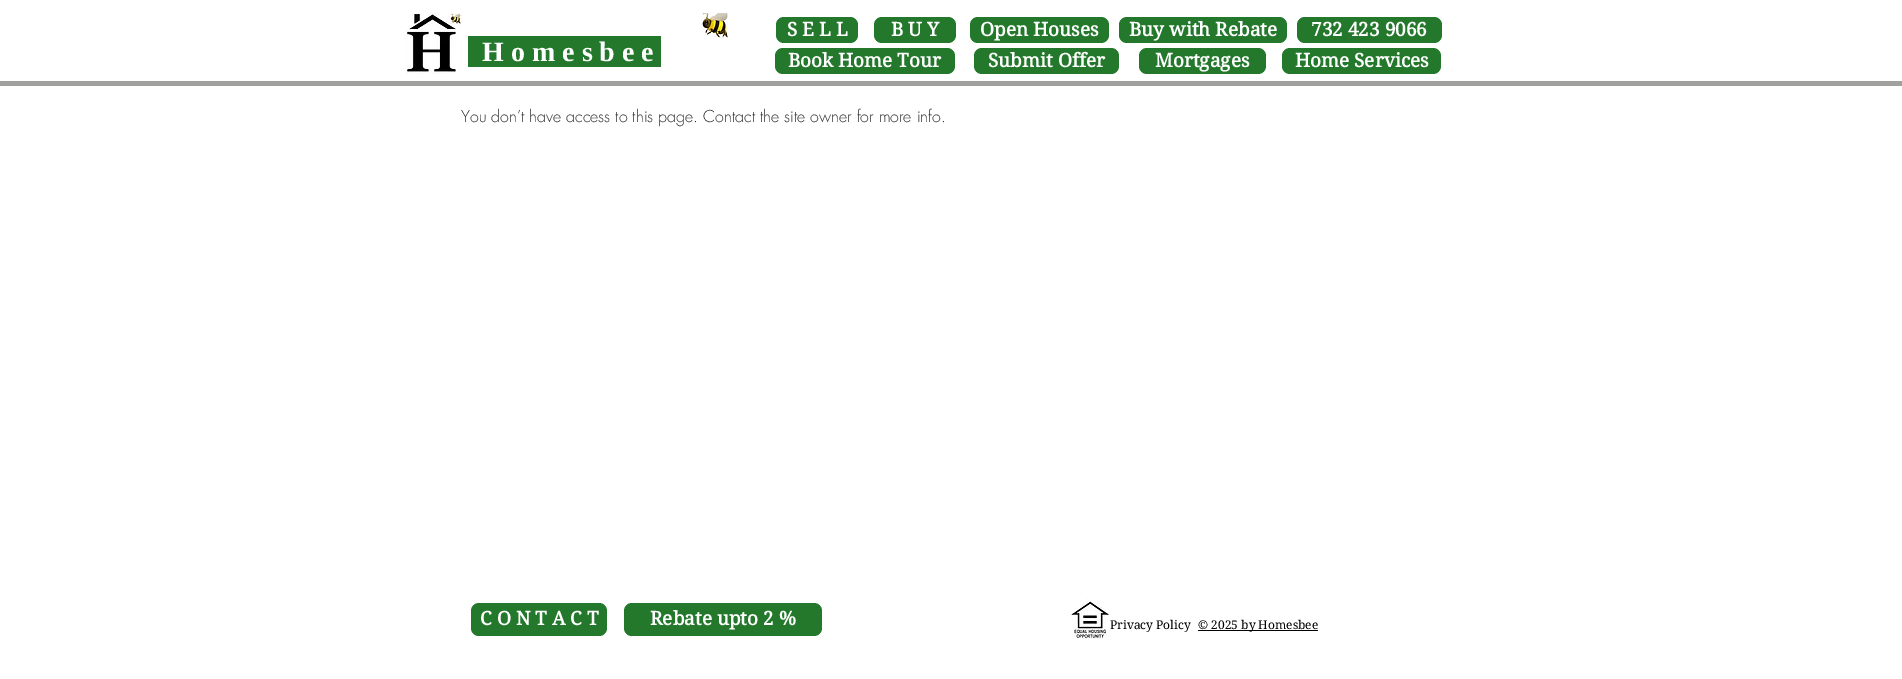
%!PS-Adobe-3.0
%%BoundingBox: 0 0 1902 679
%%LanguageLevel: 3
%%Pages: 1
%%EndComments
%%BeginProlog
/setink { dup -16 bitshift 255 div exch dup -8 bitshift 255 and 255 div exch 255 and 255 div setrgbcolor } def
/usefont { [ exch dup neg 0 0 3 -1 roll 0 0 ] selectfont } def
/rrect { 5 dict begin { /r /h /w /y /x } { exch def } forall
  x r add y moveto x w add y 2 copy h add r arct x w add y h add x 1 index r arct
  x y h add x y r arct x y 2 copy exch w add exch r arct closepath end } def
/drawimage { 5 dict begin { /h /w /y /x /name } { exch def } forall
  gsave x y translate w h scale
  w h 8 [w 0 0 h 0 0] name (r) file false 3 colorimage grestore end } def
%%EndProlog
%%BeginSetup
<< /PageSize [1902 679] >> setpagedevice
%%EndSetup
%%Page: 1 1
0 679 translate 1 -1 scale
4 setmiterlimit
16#FFFFFF setink
0 0 1902 679 rectfill
(img1.raw) 404 13 58 61 drawimage
(img2.raw) 702 13 26 25 drawimage
16#23782C setink
776 17 82 26 8 rrect fill
/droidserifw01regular-Bold 19 usefont
16#FFFFFF setink
787 36 moveto (S E L L) show
16#23782C setink
874 17 82 26 8 rrect fill
16#FFFFFF setink
891 36 moveto (B U Y) show
16#23782C setink
970 17 139 26 8 rrect fill
16#FFFFFF setink
980 36 moveto (Open Houses) show
16#23782C setink
1119 17 168 26 8 rrect fill
16#FFFFFF setink
1129 36 moveto (Buy with Rebate) show
16#23782C setink
1297 17 145 26 8 rrect fill
16#FFFFFF setink
1311 36 moveto (732 423 9066) show
16#23782C setink
468 36 193 31 rectfill
/LiberationSerif-Bold 28 usefont
16#FFFFFF setink
482 61 moveto 7 0 (Homesbee) ashow
16#23782C setink
775 48 180 26 8 rrect fill
/droidserifw01regular-Bold 19 usefont
16#FFFFFF setink
788 67 moveto (Book Home Tour) show
16#23782C setink
974 48 145 26 8 rrect fill
16#FFFFFF setink
988 67 moveto (Submit Offer) show
16#23782C setink
1139 48 127 26 8 rrect fill
16#FFFFFF setink
1155 67 moveto (Mortgages) show
16#23782C setink
1282 48 159 26 8 rrect fill
16#FFFFFF setink
1295 67 moveto (Home Services) show
16#A0A09F setink
0 81 1902 5 rectfill
/futura-Light 16 usefont
16#2F2E2E setink
461 122 moveto (You don’t have access to this page. Contact the site owner for more info.) show
16#23782C setink
471 603 136 33 8 rrect fill
/droidserifw01regular-Bold 19 usefont
16#FFFFFF setink
480 625 moveto (C O N T A C T) show
16#23782C setink
624 603 198 33 8 rrect fill
16#FFFFFF setink
650 625 moveto (Rebate upto 2 %) show
(img3.raw) 1071 599 39 40 drawimage
/droidserifw01regular-Regular 12 usefont
16#000000 setink
1110 629 moveto (Privacy Policy) show
1198 630 120 1 rectfill
1198 629 moveto (© 2025 by Homesbee) show
showpage
%%EOF
